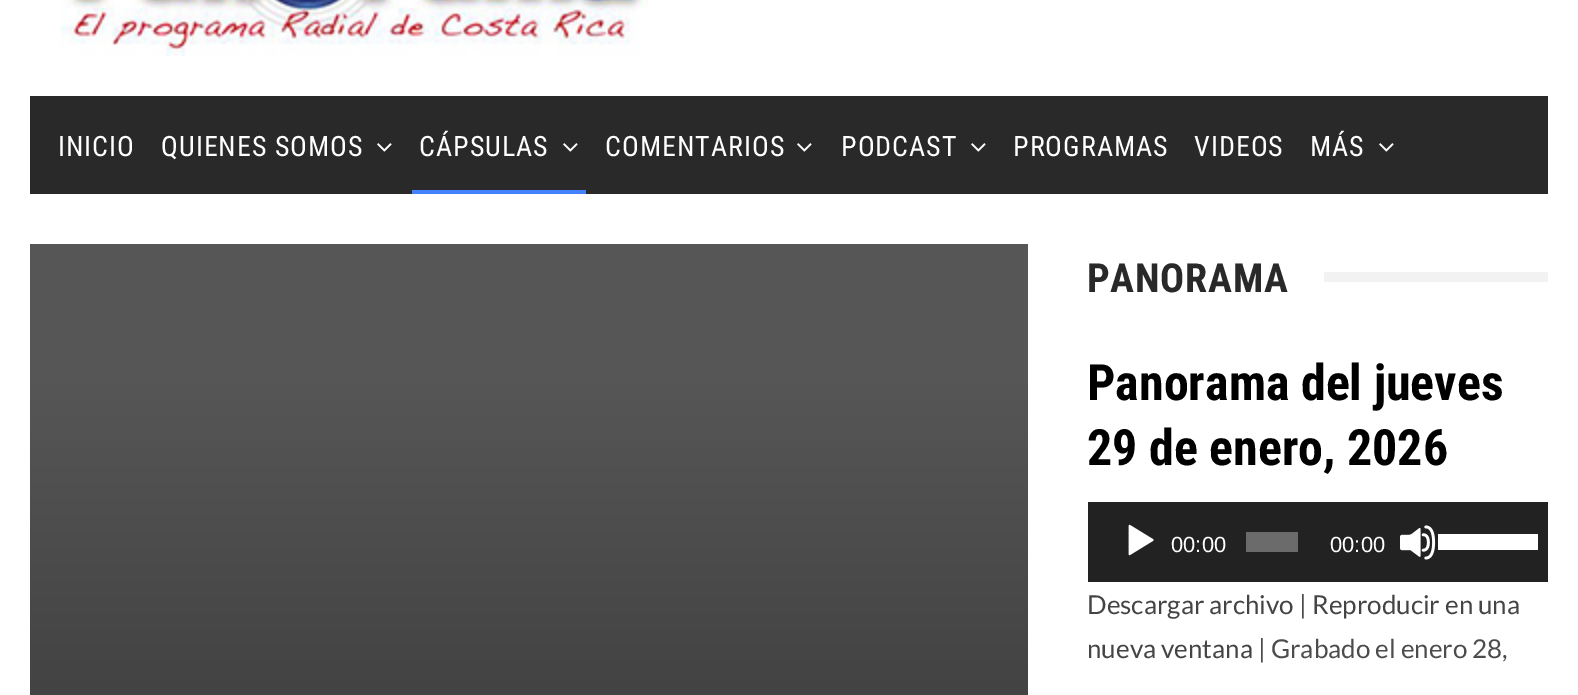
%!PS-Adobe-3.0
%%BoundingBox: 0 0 1578 695
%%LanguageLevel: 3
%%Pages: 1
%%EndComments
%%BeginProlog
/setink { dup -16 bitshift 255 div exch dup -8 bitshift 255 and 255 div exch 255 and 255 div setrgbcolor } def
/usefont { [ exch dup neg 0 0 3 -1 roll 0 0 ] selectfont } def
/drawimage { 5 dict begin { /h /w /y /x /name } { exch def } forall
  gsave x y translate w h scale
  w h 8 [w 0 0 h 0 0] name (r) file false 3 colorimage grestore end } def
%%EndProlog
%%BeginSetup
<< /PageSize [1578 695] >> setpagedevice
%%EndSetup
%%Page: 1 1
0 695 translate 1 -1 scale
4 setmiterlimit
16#FFFFFF setink
0 0 1578 695 rectfill
(img1.raw) 60 0 588 56 drawimage
16#292929 setink
30 96 1518 98 rectfill
/RobotoCondensed-Regular 28 usefont
16#FFFFFF setink
58 156 moveto 1 0 (INICIO) ashow
161 156 moveto 1 0 (QUIENES SOMOS) ashow
(img2.raw) 377 143 15 9 drawimage
419 156 moveto 1 0 (CÁPSULAS) ashow
(img2.raw) 563 143 15 9 drawimage
16#4481FC setink
412 190 174 4 rectfill
16#FFFFFF setink
605 156 moveto 1 0 (COMENTARIOS) ashow
(img2.raw) 797 143 15 9 drawimage
841 156 moveto 1 0 (PODCAST) ashow
(img2.raw) 971 143 15 9 drawimage
1013 156 moveto 1 0 (PROGRAMAS) ashow
1194 156 moveto 1 0 (VIDEOS) ashow
1310 156 moveto 1 0 (MÁS) ashow
(img2.raw) 1379 143 15 9 drawimage
16#565656 setink
30 244 998 140 rectfill
gsave 30 384 moveto 1028 384 lineto 1028 695 lineto 30 695 lineto closepath clip newpath
<< /ShadingType 2 /ColorSpace /DeviceRGB /Coords [529 384 529 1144] /Extend [true true] /Function << /FunctionType 2 /Domain [0 1] /C0 [0.337 0.337 0.337] /C1 [0.153 0.153 0.153] /N 1 >> >> shfill grestore
/RobotoCondensed-Bold 40 usefont
16#292929 setink
1087 292 moveto 0.75 0 (PANORAMA) ashow
16#F2F2F2 setink
1324 272 224 10 rectfill
/RobotoCondensed-Bold 50 usefont
16#000000 setink
1087 400 moveto (Panorama del jueves) show
1087 465 moveto (29 de enero, 2026) show
16#222222 setink
1088 502 460 80 rectfill
(img3.raw) 1128 524 26 32 drawimage
/LiberationSans-Regular 22 usefont
16#FFFFFF setink
1171 552 moveto (00:00) show
16#6B6B6B setink
1246 532 52 20 rectfill
16#FFFFFF setink
1330 552 moveto (00:00) show
(img4.raw) 1400 525 36 35 drawimage
1438 534 100 16 rectfill
/Lato-Regular 26 usefont
16#444444 setink
1087 614 moveto (Descargar archivo) show
16#4C4C4C setink
1299 614 moveto (|) show
16#444444 setink
1312 614 moveto (Reproducir en una) show
1087 658 moveto (nueva ventana) show
16#4C4C4C setink
1258 658 moveto (| Grabado el enero 28,) show
showpage
%%EOF
